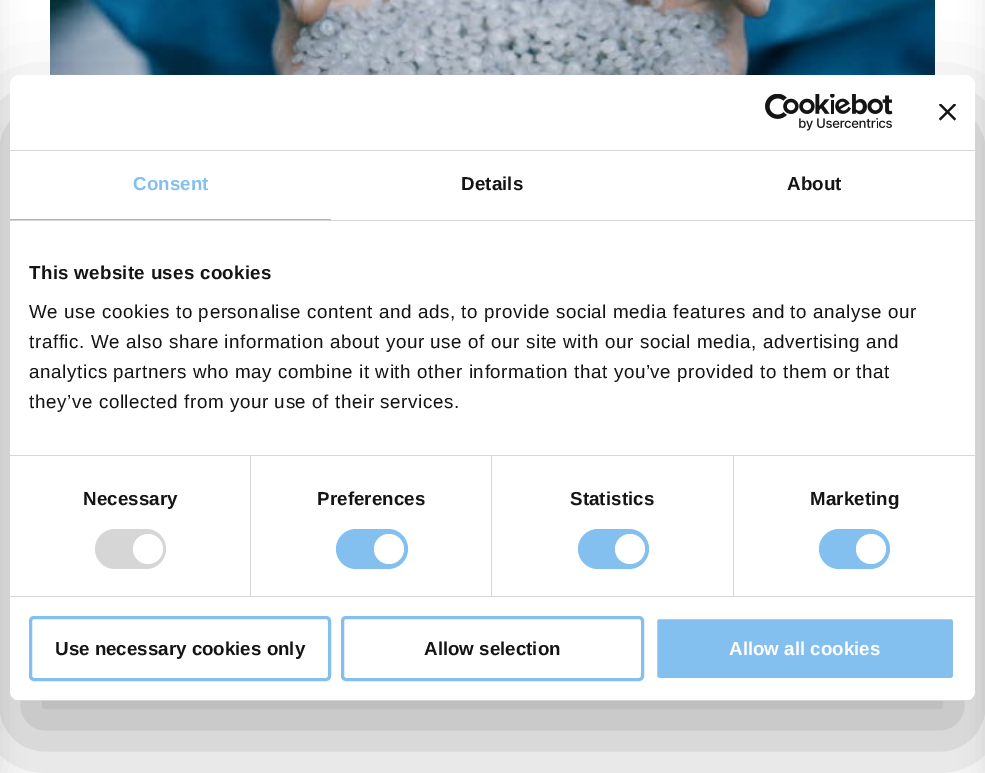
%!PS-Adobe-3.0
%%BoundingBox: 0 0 985 773
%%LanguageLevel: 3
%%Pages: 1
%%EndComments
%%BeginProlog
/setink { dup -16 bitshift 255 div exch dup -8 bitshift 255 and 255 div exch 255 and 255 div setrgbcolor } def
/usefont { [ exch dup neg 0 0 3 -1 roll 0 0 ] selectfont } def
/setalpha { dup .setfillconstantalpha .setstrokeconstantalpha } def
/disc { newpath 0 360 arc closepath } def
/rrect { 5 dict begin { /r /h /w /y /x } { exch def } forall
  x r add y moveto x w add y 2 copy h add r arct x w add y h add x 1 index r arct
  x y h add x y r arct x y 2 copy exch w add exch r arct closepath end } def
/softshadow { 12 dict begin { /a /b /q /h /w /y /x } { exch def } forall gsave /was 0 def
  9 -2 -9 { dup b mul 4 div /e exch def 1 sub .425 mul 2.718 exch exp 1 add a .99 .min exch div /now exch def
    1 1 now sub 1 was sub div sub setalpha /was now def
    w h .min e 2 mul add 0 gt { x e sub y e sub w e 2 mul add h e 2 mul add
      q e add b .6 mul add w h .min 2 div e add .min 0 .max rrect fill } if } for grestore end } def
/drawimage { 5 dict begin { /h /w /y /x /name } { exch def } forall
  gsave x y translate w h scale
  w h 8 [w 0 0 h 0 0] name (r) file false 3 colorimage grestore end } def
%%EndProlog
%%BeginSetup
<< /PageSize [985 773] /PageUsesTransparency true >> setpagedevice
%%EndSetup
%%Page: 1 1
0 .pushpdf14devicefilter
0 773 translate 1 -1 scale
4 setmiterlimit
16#FFFFFF setink
0 0 985 773 rectfill
16#222222 setink
-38 -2 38 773 0 12.5 0.1 softshadow
(img1.raw) 50 0 885 75 drawimage
985 -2 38 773 0 12.5 0.1 softshadow
16#000000 setink
10 115 965 626 10 42.5 0.3 softshadow
16#FFFFFF setink
10 75 965 626 10 rrect fill
16#D6D6D6 setink
10 150 965 1 rectfill
(img2.raw) 765 94 128 37 drawimage
(img3.raw) 939 104 17 17 drawimage
10 220 965 1 rectfill
16#83C0EF setink
10 219 321 1 rectfill
/LiberationSans-Bold 18.75 usefont
133 190 moveto 0.1 0 (Consent) ashow
16#141414 setink
461 190 moveto 0.1 0 (Details) ashow
787 190 moveto 0.1 0 (About) ashow
16#D6D6D6 setink
10 455 965 1 rectfill
16#141414 setink
29 279 moveto 0.3 0 (This website uses cookies) ashow
/LiberationSans-Regular 18.75 usefont
29 318 moveto 0.62 0 (We use cookies to personalise content and ads, to provide social media features and to analyse our) ashow
29 348 moveto 0.62 0 (traffic. We also share information about your use of our site with our social media, advertising and) ashow
29 378 moveto 0.62 0 (analytics partners who may combine it with other information that you’ve provided to them or that) ashow
29 408 moveto 0.62 0 (they’ve collected from your use of their services.) ashow
16#D6D6D6 setink
10 596 965 1 rectfill
250 456 1 140 rectfill
/LiberationSans-Bold 18.75 usefont
16#141414 setink
83 505 moveto 0.1 0 (Necessary) ashow
16#D6D6D6 setink
95 529 71 40 20 rrect fill
16#FFFFFF setink
148 549 15 disc fill
16#D6D6D6 setink
491 456 1 140 rectfill
16#141414 setink
317 505 moveto 0.1 0 (Preferences) ashow
16#83C0EF setink
336 529 72 40 20 rrect fill
16#FFFFFF setink
389 549 15 disc fill
16#D6D6D6 setink
733 456 1 140 rectfill
16#141414 setink
570 505 moveto 0.1 0 (Statistics) ashow
16#83C0EF setink
578 529 71 40 20 rrect fill
16#FFFFFF setink
630 549 15 disc fill
16#141414 setink
810 505 moveto 0.1 0 (Marketing) ashow
16#83C0EF setink
819 529 71 40 20 rrect fill
16#FFFFFF setink
871 549 15 disc fill
gsave
10 75 965 626 10 rrect clip newpath
16#D6D6D6 setink
10 700 965 1 rectfill
grestore
16#83C0EF setink
3 setlinewidth
30.5 617.5 299 62 3.5 rrect stroke
16#141414 setink
55 655 moveto (Use necessary cookies only) show
16#83C0EF setink
342.5 617.5 300 62 3.5 rrect stroke
16#141414 setink
424 655 moveto (Allow selection) show
16#83C0EF setink
655.5 617.5 299 62 3.5 rrect gsave fill grestore
16#FFFFFF setink
stroke
729 655 moveto (Allow all cookies) show
.poppdf14devicefilter showpage
%%EOF
